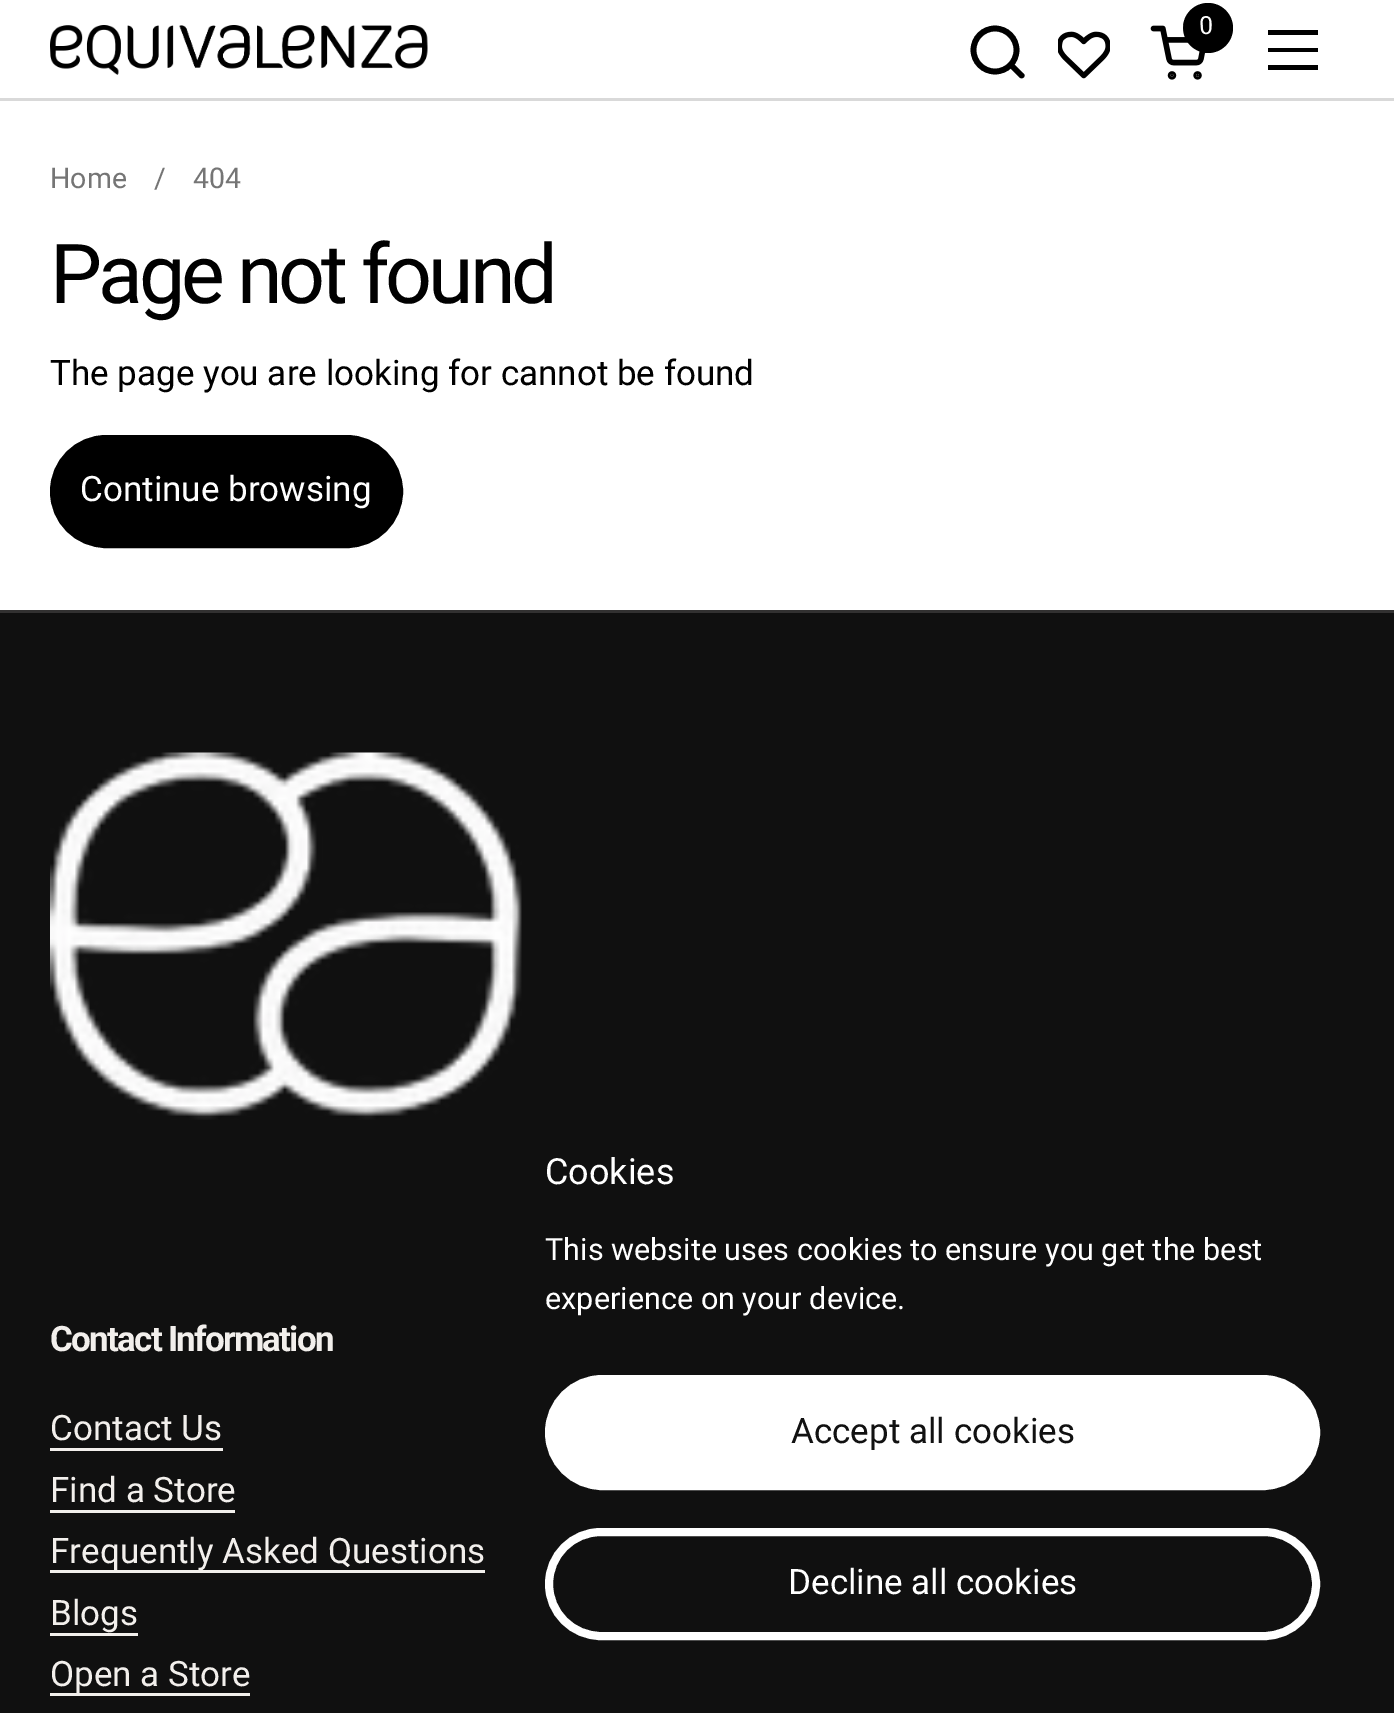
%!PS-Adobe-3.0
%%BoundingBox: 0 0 1394 1713
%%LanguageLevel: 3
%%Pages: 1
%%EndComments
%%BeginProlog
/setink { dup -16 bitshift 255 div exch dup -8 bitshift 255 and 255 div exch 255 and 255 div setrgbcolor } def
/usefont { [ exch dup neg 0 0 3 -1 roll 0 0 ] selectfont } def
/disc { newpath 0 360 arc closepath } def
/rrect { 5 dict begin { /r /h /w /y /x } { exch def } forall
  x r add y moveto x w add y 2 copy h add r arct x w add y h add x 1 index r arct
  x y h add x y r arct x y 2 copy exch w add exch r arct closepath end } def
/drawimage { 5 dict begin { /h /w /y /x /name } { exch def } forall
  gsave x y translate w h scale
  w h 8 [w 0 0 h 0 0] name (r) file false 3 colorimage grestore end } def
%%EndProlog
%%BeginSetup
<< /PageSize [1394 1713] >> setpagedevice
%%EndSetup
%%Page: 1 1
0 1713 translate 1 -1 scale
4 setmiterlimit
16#FFFFFF setink
0 0 1394 1713 rectfill
(img1.raw) 50 25 378 50 drawimage
16#000000 setink
5.7 setlinewidth
995 50 21.5 disc stroke
1013.5 63.5 moveto 1011.5 61.5 lineto 1007.5 65.5 lineto 1009.5 67.5 lineto closepath 1019.5 77.5 moveto 1022.5 80 1026.5 76 1023.5 73.5 curveto closepath 1009.5 67.5 moveto 1019.5 77.5 lineto 1023.5 73.5 lineto 1013.5 63.5 lineto closepath fill
(img2.raw) 1058 31 52 48 drawimage
1208 28 25 disc fill
/Roboto-Regular 25 usefont
16#FFFFFF setink
1199 34 moveto (0) show
(img3.raw) 1150 25 55 55 drawimage
[
    [1268 30 50 5 16#000000]
    [1268 48 50 4 16#000000]
    [1268 65 50 5 16#000000]
    [0 98 1394 3 16#D9D9D9]
] { aload pop setink rectfill } forall
/Roboto-Regular 28.5 usefont
16#757575 setink
[
    [(Home) 50 188]
    [(/) 154 188]
    [(404) 193 188]
] { aload pop moveto show } forall
/Roboto-Regular 82.5 usefont
16#000000 setink
50 303 moveto -4.1 0 (Page not found) ashow
/Roboto-Regular 35 usefont
50 385 moveto (The page you are looking for cannot be found) show
54 439 345 105 52.5 rrect gsave fill grestore
8 setlinewidth
stroke
16#FFFFFF setink
80 501 moveto (Continue browsing) show
16#101010 setink
0 613 1394 1100 rectfill
16#323131 setink
0 610 1394 3 rectfill
(img4.raw) 50 752 472 368 drawimage
/Roboto-Bold 35 usefont
16#F2EFEC setink
50 1351 moveto -1.75 0 (Contact Information) ashow
/Roboto-Regular 35 usefont
50 1440 moveto (Contact Us) show
50 1448 173 3 rectfill
50 1502 moveto (Find a Store) show
50 1510 185 3 rectfill
50 1570 435 3 rectfill
50 1563 moveto (Frequently Asked Questions) show
50 1625 moveto (Blogs) show
50 1633 88 3 rectfill
50 1693 200 3 rectfill
50 1686 moveto (Open a Store) show
/Roboto-Regular 36 usefont
16#FFFFFF setink
545 1184 moveto (Cookies) show
/Roboto-Regular 30.6 usefont
545 1260 moveto (This website uses cookies to ensure you get the best) show
545 1309 moveto (experience on your device.) show
549 1379 767 107 53.5 rrect gsave fill grestore
stroke
/Roboto-Regular 35 usefont
16#111111 setink
791 1443 moveto (Accept all cookies) show
16#FFFFFF setink
549 1532 767 104 52 rrect stroke
788 1594 moveto (Decline all cookies) show
showpage
%%EOF
